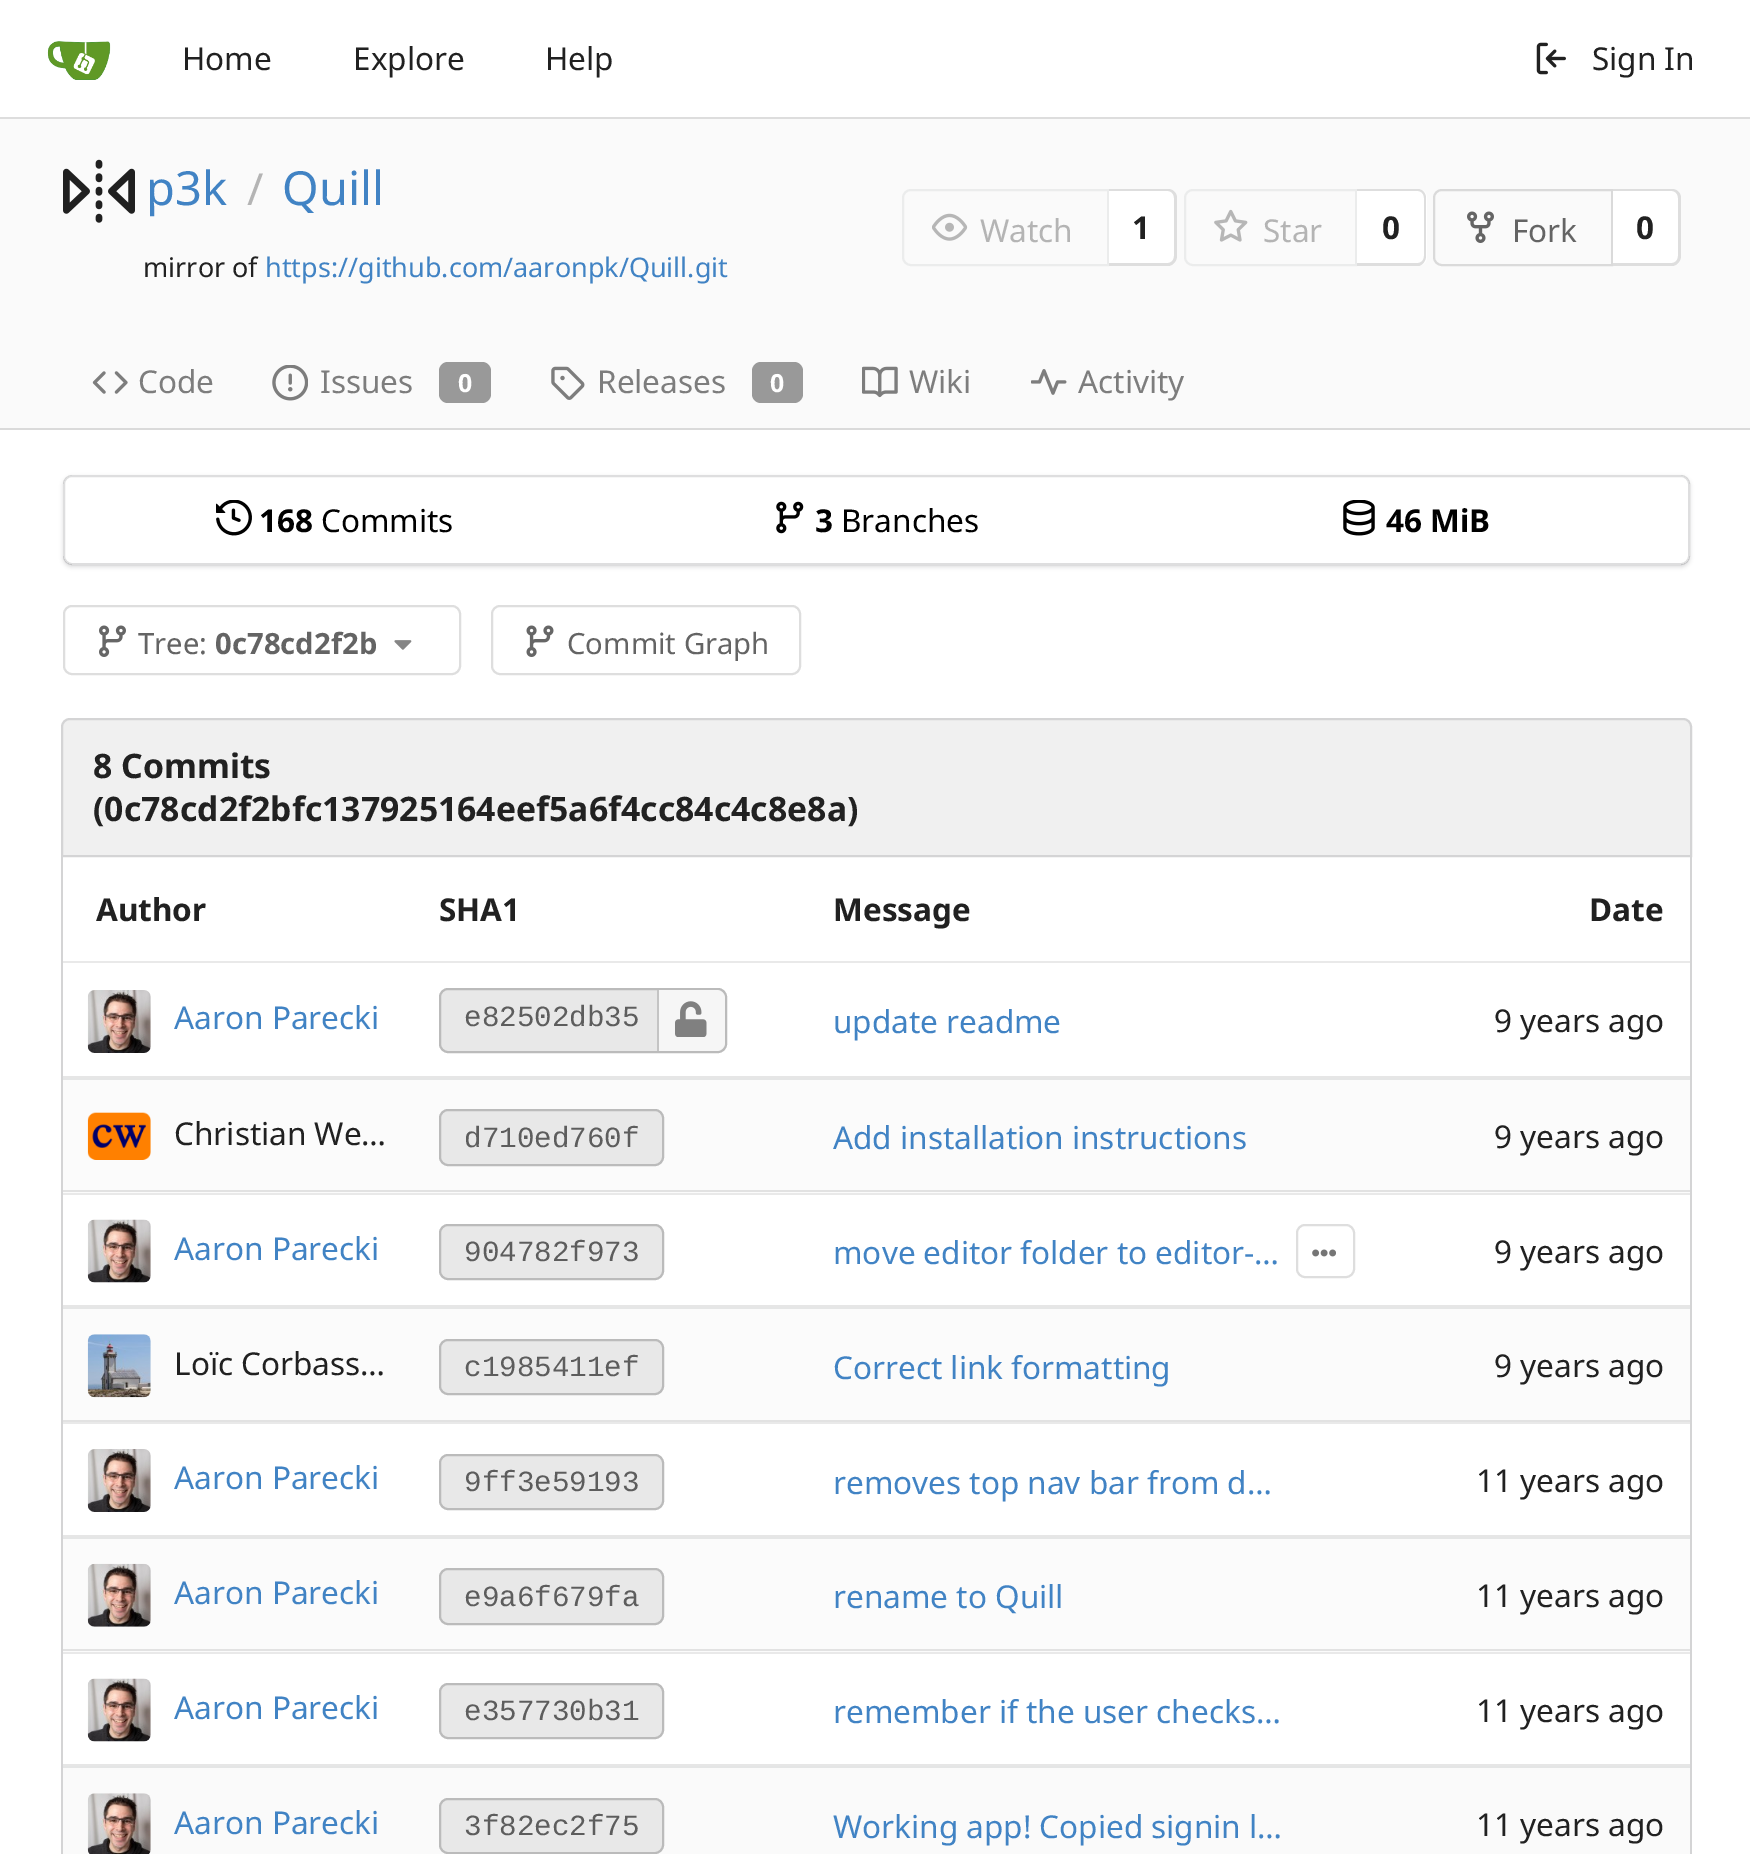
%!PS-Adobe-3.0
%%BoundingBox: 0 0 1750 1854
%%LanguageLevel: 3
%%Pages: 1
%%EndComments
%%BeginProlog
/setink { dup -16 bitshift 255 div exch dup -8 bitshift 255 and 255 div exch 255 and 255 div setrgbcolor } def
/usefont { [ exch dup neg 0 0 3 -1 roll 0 0 ] selectfont } def
/setalpha { dup .setfillconstantalpha .setstrokeconstantalpha } def
/rrect { 5 dict begin { /r /h /w /y /x } { exch def } forall
  x r add y moveto x w add y 2 copy h add r arct x w add y h add x 1 index r arct
  x y h add x y r arct x y 2 copy exch w add exch r arct closepath end } def
/softshadow { 12 dict begin { /a /b /q /h /w /y /x } { exch def } forall gsave /was 0 def
  9 -2 -9 { dup b mul 4 div /e exch def 1 sub .425 mul 2.718 exch exp 1 add a .99 .min exch div /now exch def
    1 1 now sub 1 was sub div sub setalpha /was now def
    w h .min e 2 mul add 0 gt { x e sub y e sub w e 2 mul add h e 2 mul add
      q e add b .6 mul add w h .min 2 div e add .min 0 .max rrect fill } if } for grestore end } def
/drawimage { 5 dict begin { /h /w /y /x /name } { exch def } forall
  gsave x y translate w h scale
  w h 8 [w 0 0 h 0 0] name (r) file false 3 colorimage grestore end } def
%%EndProlog
%%BeginSetup
<< /PageSize [1750 1854] /PageUsesTransparency true >> setpagedevice
%%EndSetup
%%Page: 1 1
0 .pushpdf14devicefilter
0 1854 translate 1 -1 scale
4 setmiterlimit
16#FFFFFF setink
0 0 1750 1854 rectfill
16#DDDDDD setink
0 117 1750 2 rectfill
(img1.raw) 47 41 64 39 drawimage
/NotoSans-Regular 31.5 usefont
16#212121 setink
[
    [(Home) 182 70]
    [(Explore) 353 70]
    [(Help) 545 70]
] { aload pop moveto show } forall
(img2.raw) 1536 42 30 33 drawimage
1592 70 moveto (Sign In) show
16#FAFAFA setink
0 119 1750 309 rectfill
(img3.raw) 63 159 72 64 drawimage
/NotoSans-Regular 47 usefont
16#4183C4 setink
146 205 moveto (p3k) show
/NotoSans-Regular 44 usefont
16#B4B4B4 setink
247 205 moveto (/) show
/NotoSans-Regular 47 usefont
16#4183C4 setink
282 205 moveto (Quill) show
/NotoSans-Regular 27 usefont
16#212121 setink
143 277 moveto (mirror of) show
16#4183C4 setink
265 277 moveto (https://github.com/aaronpk/Quill.git) show
16#EBECEC setink
2 setlinewidth
911 190 moveto 1108 190 lineto 1108 265 lineto 911 265 lineto 906.5 265 903 261.5 903 257 curveto 903 198 lineto 903 193.5 906.5 190 911 190 curveto closepath stroke
(img4.raw) 932 213 36 28 drawimage
/NotoSans-Regular 31.5 usefont
16#B4B4B4 setink
980 242 moveto (Watch) show
16#FFFFFF setink
1109 189 moveto 1168 189 lineto 1173 189 1177 193 1177 198 curveto 1177 257 lineto 1177 262 1173 266 1168 266 curveto 1109 266 lineto closepath fill
16#DEDEDE setink
1109 189 moveto 1168 189 lineto 1173 189 1177 193 1177 198 curveto 1177 256 lineto 1177 261 1173 266 1168 266 curveto 1109 266 lineto closepath 1109 191 moveto 1168 191 lineto 1171 191 1174 194 1174 198 curveto 1174 256 lineto 1174 260 1171 263 1168 263 curveto 1109 263 lineto closepath eofill
/NotoSans-Bold 31.5 usefont
16#212121 setink
1132 239 moveto (1) show
16#EBECEC setink
1193 190 moveto 1356 190 lineto 1356 265 lineto 1193 265 lineto 1188.5 265 1185 261.5 1185 257 curveto 1185 198 lineto 1185 193.5 1188.5 190 1193 190 curveto closepath stroke
(img5.raw) 1214 209 34 33 drawimage
/NotoSans-Regular 31.5 usefont
16#B4B4B4 setink
1263 242 moveto (Star) show
16#FFFFFF setink
1357 189 moveto 1418 189 lineto 1423 189 1427 193 1427 198 curveto 1427 257 lineto 1427 262 1423 266 1418 266 curveto 1357 266 lineto closepath fill
16#DEDEDE setink
1357 189 moveto 1418 189 lineto 1422 189 1426 193 1426 198 curveto 1426 256 lineto 1426 261 1422 266 1418 266 curveto 1357 266 lineto closepath 1357 191 moveto 1418 191 lineto 1421 191 1424 194 1424 198 curveto 1424 256 lineto 1424 260 1421 263 1418 263 curveto 1357 263 lineto closepath eofill
/NotoSans-Bold 31.5 usefont
16#212121 setink
1382 239 moveto (0) show
16#DADADA setink
1442 190 moveto 1612 190 lineto 1612 265 lineto 1442 265 lineto 1437.5 265 1434 261.5 1434 257 curveto 1434 198 lineto 1434 193.5 1437.5 190 1442 190 curveto closepath stroke
(img6.raw) 1467 211 27 32 drawimage
/NotoSans-Regular 31.5 usefont
16#646464 setink
1512 242 moveto (Fork) show
16#FFFFFF setink
1613 189 moveto 1672 189 lineto 1677 189 1681 193 1681 198 curveto 1681 257 lineto 1681 262 1677 266 1672 266 curveto 1613 266 lineto closepath fill
16#DEDEDE setink
1613 189 moveto 1672 189 lineto 1677 189 1681 193 1681 198 curveto 1681 256 lineto 1681 261 1677 266 1672 266 curveto 1613 266 lineto closepath 1613 191 moveto 1672 191 lineto 1675 191 1678 194 1678 198 curveto 1678 256 lineto 1678 260 1675 263 1672 263 curveto 1613 263 lineto closepath eofill
/NotoSans-Bold 31.5 usefont
16#212121 setink
1636 239 moveto (0) show
(img7.raw) 92 371 36 23 drawimage
/NotoSans-Regular 31.5 usefont
16#7D7D7D setink
138 393 moveto (Code) show
(img8.raw) 272 365 36 36 drawimage
320 393 moveto (Issues) show
16#999999 setink
439 362 52 41 9 rrect fill
/NotoSans-Bold 25 usefont
16#FFFFFF setink
458 392 moveto (0) show
(img9.raw) 551 366 34 34 drawimage
/NotoSans-Regular 31.5 usefont
16#7D7D7D setink
597 393 moveto (Releases) show
16#999999 setink
752 362 51 41 9 rrect fill
/NotoSans-Bold 25 usefont
16#FFFFFF setink
770 392 moveto (0) show
(img10.raw) 862 366 36 32 drawimage
/NotoSans-Regular 31.5 usefont
16#7D7D7D setink
909 393 moveto (Wiki) show
(img11.raw) 1031 369 36 26 drawimage
1078 393 moveto (Activity) show
16#DADADA setink
0 428 1750 2 rectfill
gsave
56 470 moveto 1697 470 lineto 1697 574 lineto 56 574 lineto closepath 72 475 moveto 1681 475 lineto 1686 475 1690 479 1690 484 curveto 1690 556 lineto 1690 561 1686 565 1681 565 curveto 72 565 lineto 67 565 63 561 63 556 curveto 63 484 lineto 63 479 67 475 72 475 curveto closepath eoclip newpath
16#222426 setink
63 477 1627 90 9 2 0.15 softshadow
grestore
0.15 setalpha
16#222426 setink
64 476 1625 88 8 rrect stroke
1 setalpha
(img12.raw) 216 500 36 36 drawimage
/NotoSans-Bold 31.5 usefont
16#000000 setink
259 532 moveto (168) show
/NotoSans-Regular 31.5 usefont
321 532 moveto (Commits) show
(img13.raw) 776 501 28 33 drawimage
/NotoSans-Bold 31.5 usefont
815 532 moveto (3) show
/NotoSans-Regular 31.5 usefont
841 532 moveto (Branches) show
(img14.raw) 1343 500 32 36 drawimage
/NotoSans-Bold 31.5 usefont
1386 532 moveto (46 MiB) show
16#DEDEDE setink
64 606 396 68 8 rrect stroke
(img15.raw) 99 625 27 32 drawimage
/NotoSans-Regular 29.25 usefont
16#646464 setink
138 654 moveto (Tree:) show
/NotoSans-Bold 29.25 usefont
215 654 moveto (0c78cd2f2b) show
(img16.raw) 394 640 18 10 drawimage
16#DEDEDE setink
492 606 308 68 8 rrect stroke
(img17.raw) 526 625 28 32 drawimage
/NotoSans-Regular 29.25 usefont
16#646464 setink
567 654 moveto (Commit Graph) show
16#F0F0F0 setink
70 719 moveto 1683 719 lineto 1687.5 719 1691 722.5 1691 727 curveto 1691 856 lineto 62 856 lineto 62 727 lineto 62 722.5 65.5 719 70 719 curveto closepath gsave fill grestore
16#D4D4D5 setink
stroke
/NotoSans-Bold 33.75 usefont
16#212121 setink
93 778 moveto (8 Commits) show
93 821 moveto (\(0c78cd2f2bfc137925164eef5a6f4cc84c4c8e8a\)) show
[
    [1690 857 2 997 16#D4D4D5]
    [61 857 2 997 16#D4D4D5]
    [63 961 1627 2 16#E9E9E9]
] { aload pop setink rectfill } forall
/NotoSans-Bold 31.5 usefont
16#212121 setink
[
    [(Author) 96 921]
    [(SHA1) 439 921]
    [(Message) 833 921]
    [(Date) 1589 921]
] { aload pop moveto show } forall
16#E6E6E6 setink
63 1076 1627 2 rectfill
(img18.raw) 87 990 64 63 drawimage
/NotoSans-Regular 31.5 usefont
16#4183C4 setink
174 1029 moveto (Aaron Parecki) show
16#E8E8E8 setink
440 989 286 63 8 rrect gsave fill grestore
16#BBBBBB setink
stroke
/LiberationMono-Regular 29.25 usefont
16#5D5D5D setink
464 1026 moveto (e82502db35) show
16#F6F6F6 setink
657 990 moveto 716 990 lineto 721 990 725 994 725 999 curveto 725 1042 lineto 725 1047 721 1051 716 1051 curveto 657 1051 lineto closepath fill
16#C4C4C4 setink
657 990 2 61 rectfill
(img19.raw) 675 1001 32 36 drawimage
/NotoSans-Regular 31.5 usefont
16#4183C4 setink
833 1033 moveto (update readme) show
16#212121 setink
1494 1032 moveto (9 years ago) show
[
    [63 1080 1627 113 16#FBFBFB]
    [63 1190 1627 2 16#E2E2E2]
    [63 1078 1627 2 16#E5E6E6]
] { aload pop setink rectfill } forall
(img20.raw) 87 1112 64 48 drawimage
16#212121 setink
174 1145 moveto (Christian We…) show
16#E8E8E8 setink
440 1110 223 55 8 rrect gsave fill grestore
16#BBBBBB setink
stroke
/LiberationMono-Regular 29.25 usefont
16#5D5D5D setink
464 1147 moveto (d710ed760f) show
/NotoSans-Regular 31.5 usefont
16#4183C4 setink
833 1149 moveto (Add installation instructions) show
16#212121 setink
1494 1148 moveto (9 years ago) show
16#E6E6E6 setink
63 1305 1627 2 rectfill
16#E9E9E9 setink
63 1193 1627 2 rectfill
(img21.raw) 87 1219 64 64 drawimage
16#4183C4 setink
174 1260 moveto (Aaron Parecki) show
16#E8E8E8 setink
440 1225 223 54 8 rrect gsave fill grestore
16#BBBBBB setink
stroke
/LiberationMono-Regular 29.25 usefont
16#5D5D5D setink
464 1261 moveto (904782f973) show
/NotoSans-Regular 31.5 usefont
16#4183C4 setink
833 1264 moveto (move editor folder to editor-…) show
16#DEDEDE setink
1297 1225 57 52 8 rrect stroke
(img22.raw) 1312 1249 24 8 drawimage
16#212121 setink
1494 1263 moveto (9 years ago) show
[
    [63 1309 1627 111 16#FBFBFB]
    [63 1420 1627 2 16#E2E2E2]
    [63 1307 1627 2 16#E5E6E6]
] { aload pop setink rectfill } forall
(img23.raw) 87 1334 64 64 drawimage
16#212121 setink
174 1375 moveto (Loïc Corbass…) show
16#E8E8E8 setink
440 1340 223 54 8 rrect gsave fill grestore
16#BBBBBB setink
stroke
/LiberationMono-Regular 29.25 usefont
16#5D5D5D setink
464 1376 moveto (c1985411ef) show
/NotoSans-Regular 31.5 usefont
16#4183C4 setink
833 1379 moveto (Correct link formatting) show
16#212121 setink
1494 1377 moveto (9 years ago) show
16#E6E6E6 setink
63 1535 1627 2 rectfill
16#E9E9E9 setink
63 1422 1627 2 rectfill
(img24.raw) 87 1449 64 63 drawimage
16#4183C4 setink
174 1489 moveto (Aaron Parecki) show
16#E8E8E8 setink
440 1455 223 54 8 rrect gsave fill grestore
16#BBBBBB setink
stroke
/LiberationMono-Regular 29.25 usefont
16#5D5D5D setink
464 1491 moveto (9ff3e59193) show
/NotoSans-Regular 31.5 usefont
16#4183C4 setink
833 1494 moveto (removes top nav bar from d…) show
16#212121 setink
1476 1492 moveto (11 years ago) show
[
    [63 1539 1627 113 16#FBFBFB]
    [63 1649 1627 2 16#E2E2E2]
    [63 1537 1627 2 16#E5E6E6]
] { aload pop setink rectfill } forall
(img25.raw) 87 1563 64 64 drawimage
16#4183C4 setink
174 1604 moveto (Aaron Parecki) show
16#E8E8E8 setink
440 1569 223 55 8 rrect gsave fill grestore
16#BBBBBB setink
stroke
/LiberationMono-Regular 29.25 usefont
16#5D5D5D setink
464 1606 moveto (e9a6f679fa) show
/NotoSans-Regular 31.5 usefont
16#4183C4 setink
833 1608 moveto (rename to Quill) show
16#212121 setink
1476 1607 moveto (11 years ago) show
16#E6E6E6 setink
63 1764 1627 2 rectfill
16#E9E9E9 setink
63 1652 1627 2 rectfill
(img26.raw) 87 1678 64 64 drawimage
16#4183C4 setink
174 1719 moveto (Aaron Parecki) show
16#E8E8E8 setink
440 1684 223 54 8 rrect gsave fill grestore
16#BBBBBB setink
stroke
/LiberationMono-Regular 29.25 usefont
16#5D5D5D setink
464 1720 moveto (e357730b31) show
/NotoSans-Regular 31.5 usefont
16#4183C4 setink
833 1723 moveto (remember if the user checks…) show
16#212121 setink
1476 1722 moveto (11 years ago) show
16#FAFAFA setink
63 1768 1627 86 rectfill
16#E4E5E5 setink
63 1766 1627 2 rectfill
(img27.raw) 87 1793 64 61 drawimage
16#4183C4 setink
174 1834 moveto (Aaron Parecki) show
16#E8E8E8 setink
440 1799 223 54 8 rrect gsave fill grestore
16#BBBBBB setink
stroke
/LiberationMono-Regular 29.25 usefont
16#5D5D5D setink
464 1835 moveto (3f82ec2f75) show
/NotoSans-Regular 31.5 usefont
16#4183C4 setink
833 1838 moveto (Working app! Copied signin l…) show
16#212121 setink
1476 1836 moveto (11 years ago) show
.poppdf14devicefilter showpage
%%EOF
